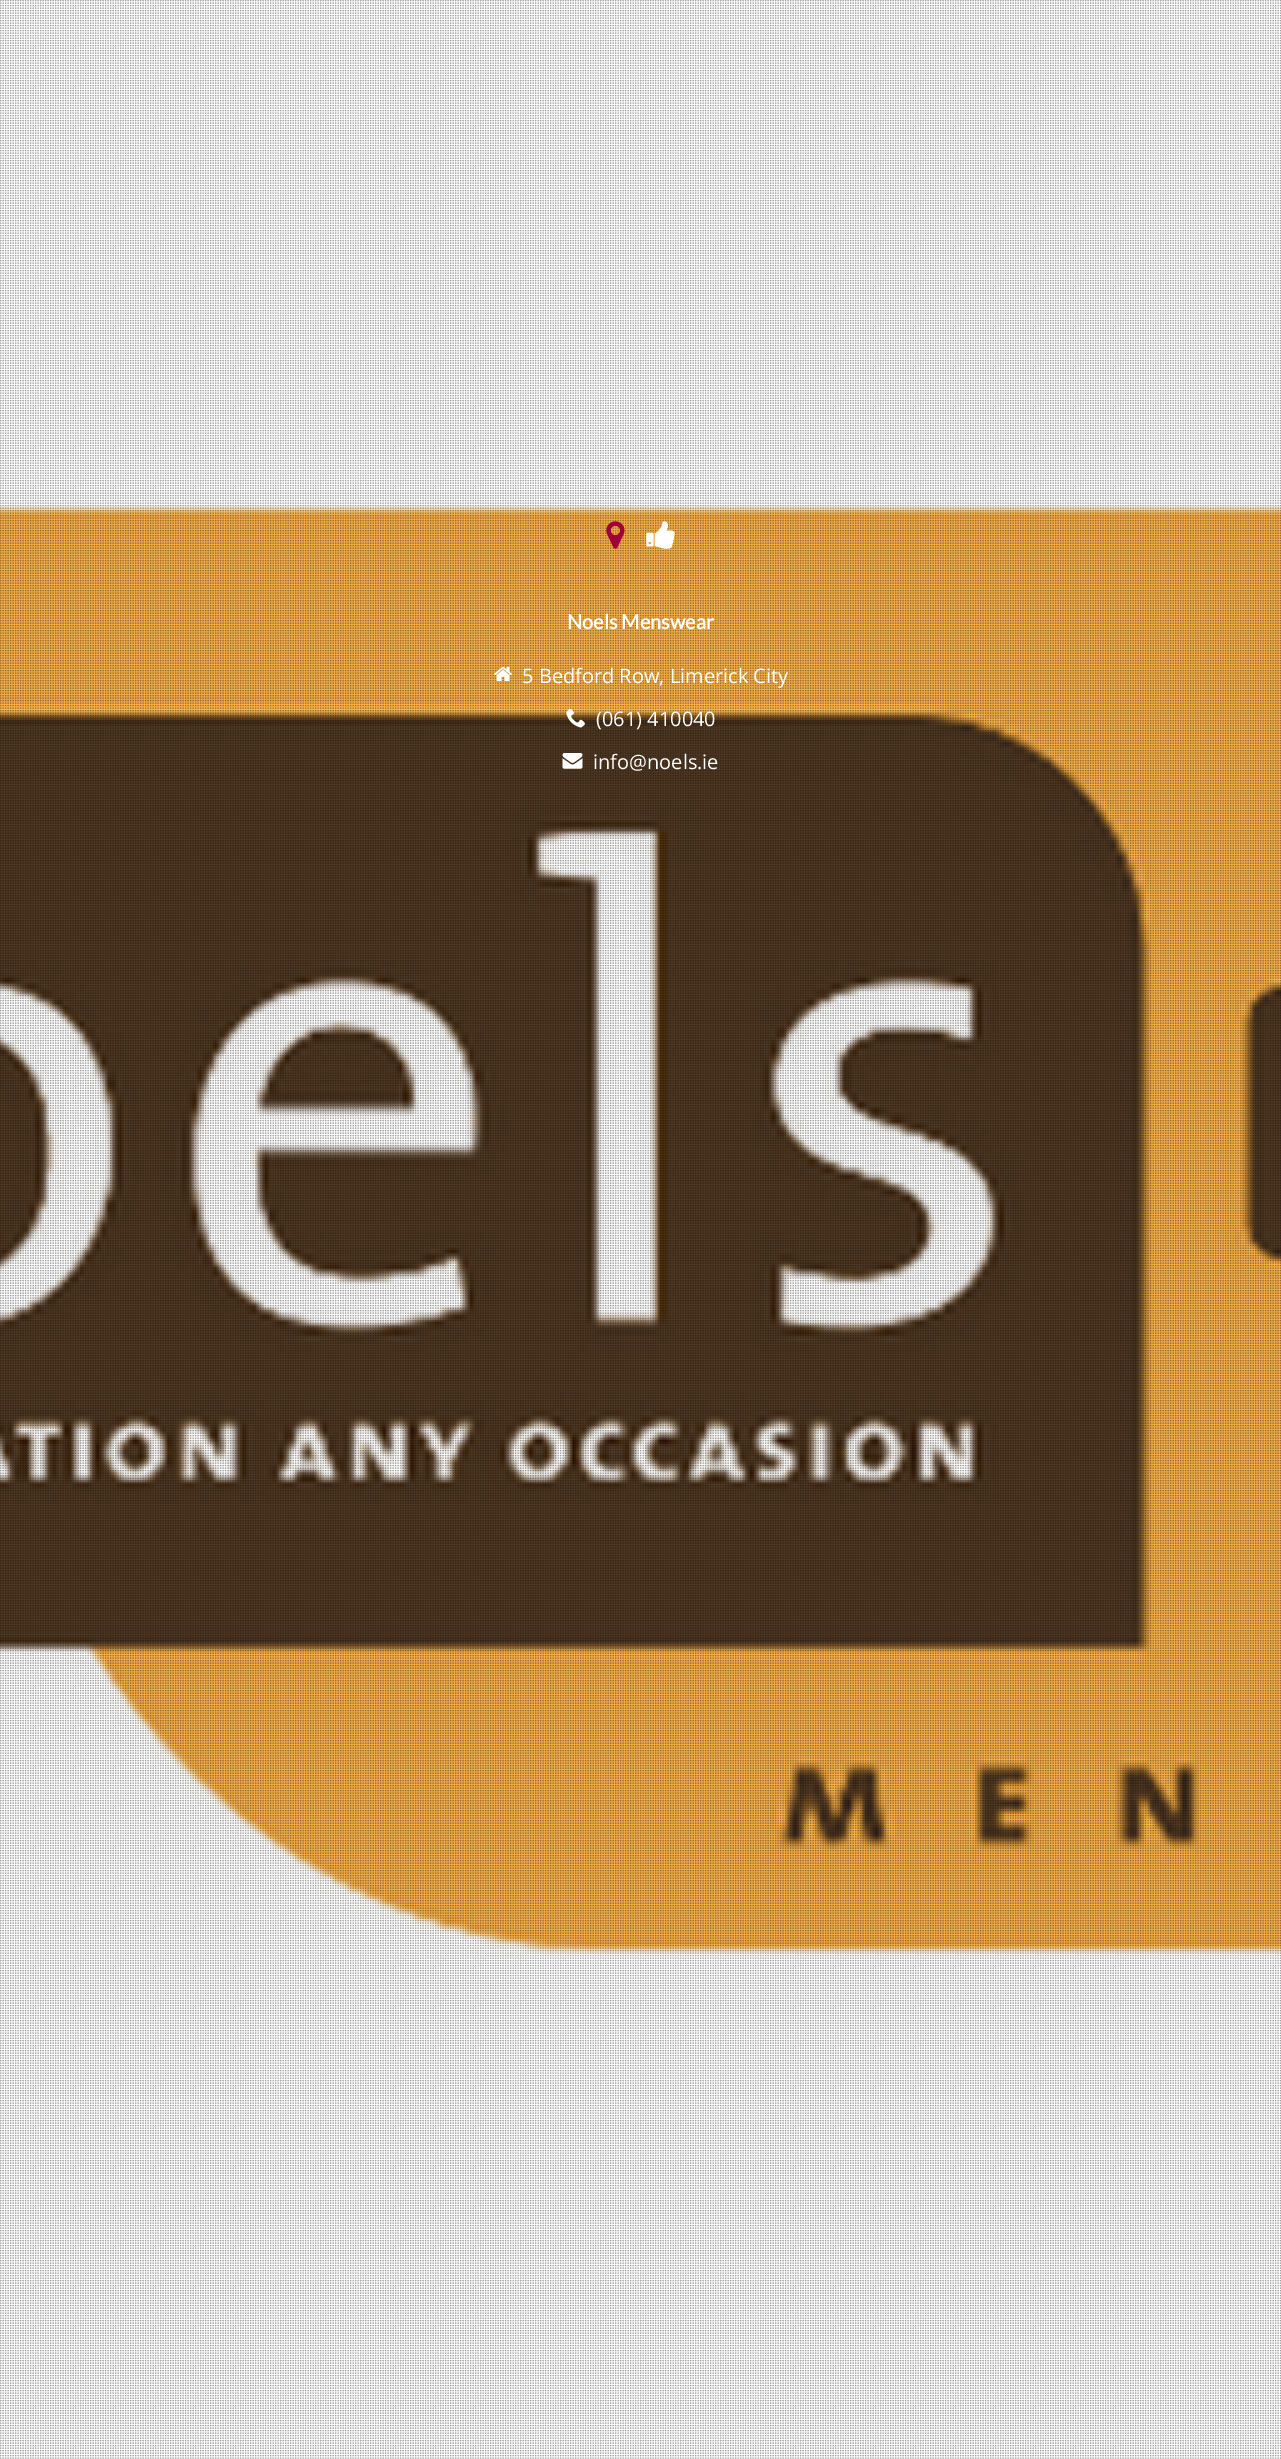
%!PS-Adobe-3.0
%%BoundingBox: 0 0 1281 2459
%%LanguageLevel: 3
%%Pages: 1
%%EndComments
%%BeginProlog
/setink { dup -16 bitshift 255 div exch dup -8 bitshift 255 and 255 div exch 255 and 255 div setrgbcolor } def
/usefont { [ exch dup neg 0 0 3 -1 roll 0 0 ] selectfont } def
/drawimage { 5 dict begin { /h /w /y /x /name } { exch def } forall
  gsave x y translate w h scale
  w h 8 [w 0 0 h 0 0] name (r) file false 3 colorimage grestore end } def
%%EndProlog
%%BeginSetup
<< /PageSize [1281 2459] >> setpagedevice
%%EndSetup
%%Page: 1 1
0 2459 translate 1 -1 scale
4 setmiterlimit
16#FFFFFF setink
0 0 1281 2459 rectfill
(img2.raw) 0 493 1281 1464 drawimage
(img1.raw) 0 0 1281 2459 drawimage
(img3.raw) 606 521 19 28 drawimage
(img4.raw) 646 521 29 28 drawimage
/Lato-Bold 20 usefont
567 629 moveto (Noels Menswear) show
(img5.raw) 494 666 18 16 drawimage
/OpenSans-Regular 20 usefont
522 683 moveto (5 Bedford Row, Limerick City) show
(img6.raw) 566 708 19 20 drawimage
596 726 moveto (\(061\) 410040) show
(img7.raw) 562 753 21 16 drawimage
593 769 moveto (info@noels.ie) show
showpage
%%EOF
